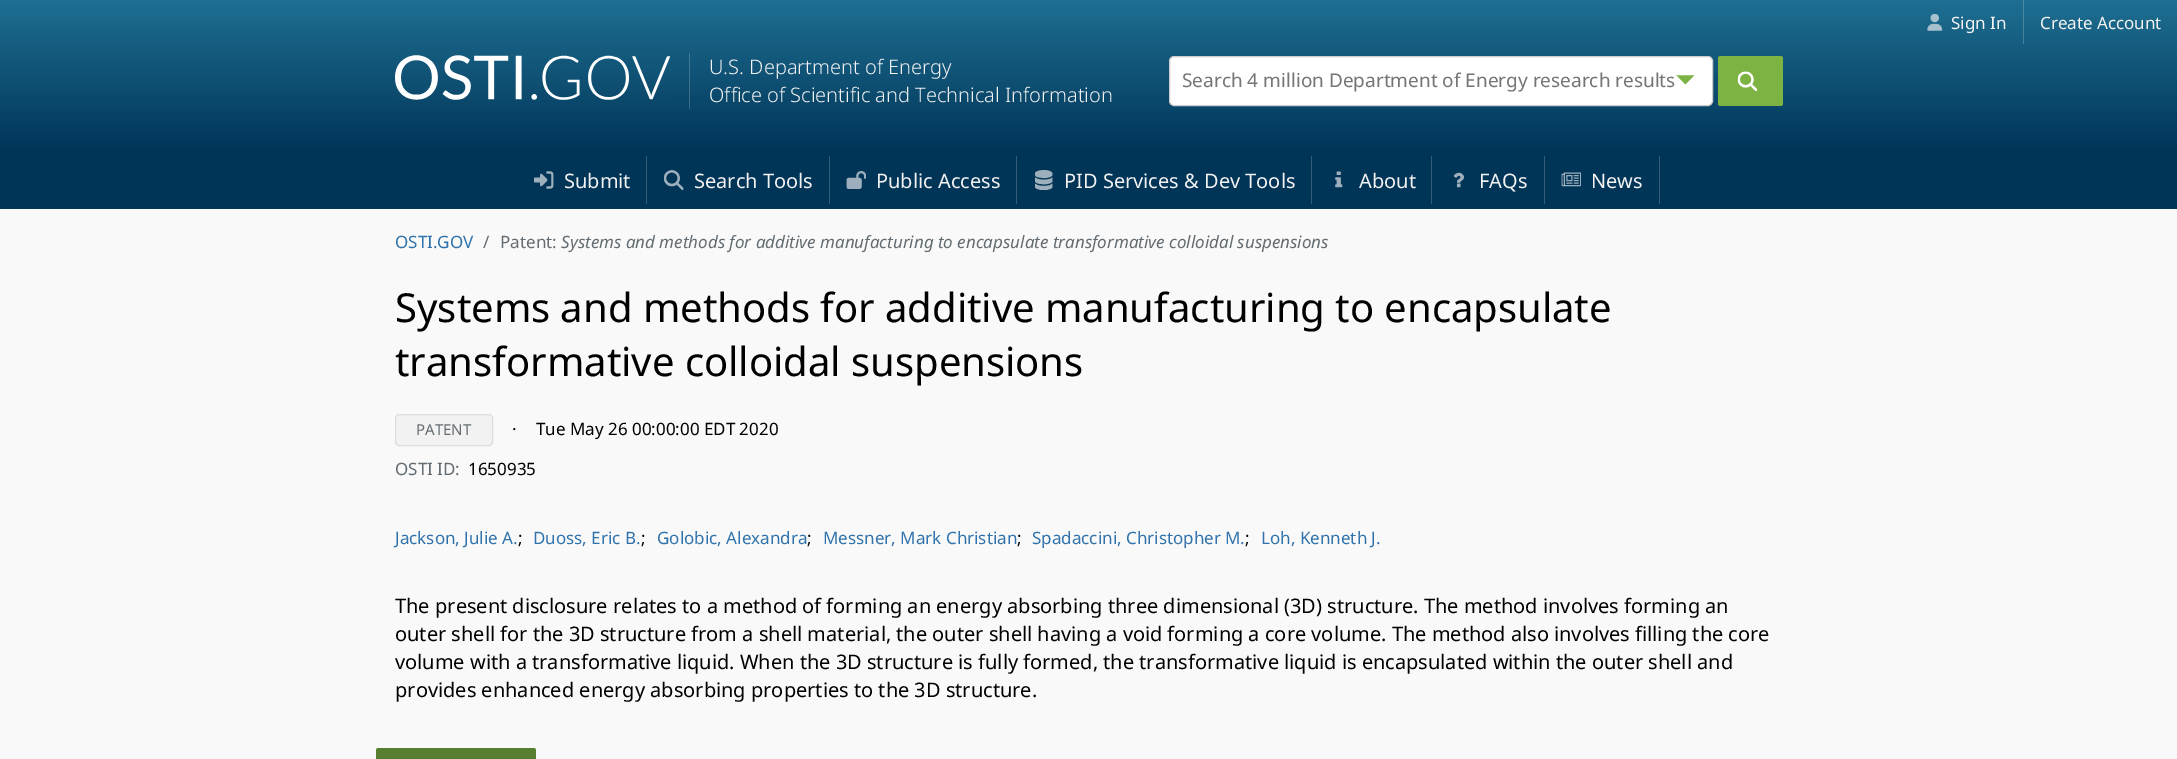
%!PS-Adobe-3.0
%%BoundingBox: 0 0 2177 759
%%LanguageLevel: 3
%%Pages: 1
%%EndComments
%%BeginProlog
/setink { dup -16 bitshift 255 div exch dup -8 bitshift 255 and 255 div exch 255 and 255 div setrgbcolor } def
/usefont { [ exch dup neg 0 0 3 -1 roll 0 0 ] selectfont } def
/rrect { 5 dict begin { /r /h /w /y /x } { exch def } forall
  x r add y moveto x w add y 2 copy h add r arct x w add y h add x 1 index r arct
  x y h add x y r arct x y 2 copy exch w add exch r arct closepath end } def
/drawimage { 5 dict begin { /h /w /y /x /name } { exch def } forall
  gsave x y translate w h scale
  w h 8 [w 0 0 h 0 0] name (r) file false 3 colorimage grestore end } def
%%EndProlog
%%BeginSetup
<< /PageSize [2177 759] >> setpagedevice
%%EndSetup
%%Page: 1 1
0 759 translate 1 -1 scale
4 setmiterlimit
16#F9F9F9 setink
0 0 2177 759 rectfill
16#013558 setink
0 151 2177 58 rectfill
gsave 0 0 moveto 2177 0 lineto 2177 151 lineto 0 151 lineto closepath clip newpath
<< /ShadingType 2 /ColorSpace /DeviceRGB /Coords [1089 0 1089 151] /Extend [true true] /Function << /FunctionType 2 /Domain [0 1] /C0 [0.118 0.435 0.573] /C1 [0.004 0.208 0.345] /N 1 >> >> shfill grestore
(img1.raw) 1927 14 16 17 drawimage
/NotoSans-Regular 17 usefont
16#F2F2F2 setink
1951 29 moveto (Sign In) show
2040 29 moveto (Create Account) show
gsave 689 53 moveto 690 53 lineto 690 109 lineto 689 109 lineto closepath clip newpath
<< /ShadingType 2 /ColorSpace /DeviceRGB /Coords [1089 0 1089 151] /Extend [true true] /Function << /FunctionType 2 /Domain [0 1] /C0 [0.294 0.549 0.659] /C1 [0.204 0.365 0.475] /N 1 >> >> shfill grestore
gsave 2023 0 moveto 2024 0 lineto 2024 44 lineto 2023 44 lineto closepath clip newpath
<< /ShadingType 2 /ColorSpace /DeviceRGB /Coords [1089 0 1089 151] /Extend [true true] /Function << /FunctionType 2 /Domain [0 1] /C0 [0.294 0.549 0.659] /C1 [0.204 0.365 0.475] /N 1 >> >> shfill grestore
(img2.raw) 395 55 275 45 drawimage
/NotoSans-Light 20 usefont
709 74 moveto (U.S. Department of Energy) show
709 102 moveto (Office of Scientific and Technical Information) show
16#FFFFFF setink
1169.5 56.5 543 49 4.5 rrect gsave fill grestore
16#CCCCCC setink
stroke
/NotoSans-Regular 19 usefont
16#757575 setink
1182 87 moveto (Search 4 million Department of Energy research results) show
/FreeSans-Regular 26 usefont
16#7CB342 setink
1675 88 moveto (⏷) show
1718 56 65 50 2.5 rrect fill
(img3.raw) 1737 71 21 20 drawimage
16#345D79 setink
646 156 1 48 rectfill
(img4.raw) 534 171 20 18 drawimage
/NotoSans-Regular 20 usefont
16#F2F2F2 setink
564 188 moveto (Submit) show
16#345D79 setink
829 156 1 48 rectfill
(img5.raw) 664 170 20 20 drawimage
16#F2F2F2 setink
694 188 moveto (Search Tools) show
16#345D79 setink
1016 156 1 48 rectfill
(img6.raw) 846 171 20 18 drawimage
16#F2F2F2 setink
876 188 moveto (Public Access) show
16#345D79 setink
1311 156 1 48 rectfill
(img7.raw) 1035 170 18 20 drawimage
16#F2F2F2 setink
1064 188 moveto (PID Services & Dev Tools) show
16#345D79 setink
1431 156 1 48 rectfill
(img8.raw) 1335 171 8 17 drawimage
16#F2F2F2 setink
1359 188 moveto (About) show
16#345D79 setink
1544 156 1 48 rectfill
(img9.raw) 1453 172 11 16 drawimage
16#F2F2F2 setink
1479 188 moveto (FAQs) show
16#345D79 setink
1659 156 1 48 rectfill
(img10.raw) 1561 172 20 15 drawimage
16#F2F2F2 setink
1591 188 moveto (News) show
/NotoSans-Regular 17 usefont
16#3073AC setink
395 248 moveto (OSTI.GOV) show
16#636C72 setink
483 248 moveto (/) show
500 248 moveto (Patent:) show
/NotoSans-Italic 17 usefont
561 248 moveto (Systems and methods for additive manufacturing to encapsulate transformative colloidal suspensions) show
/NotoSans-Regular 40 usefont
16#000000 setink
395 322 moveto (Systems and methods for additive manufacturing to encapsulate) show
395 376 moveto (transformative colloidal suspensions) show
16#F2F2F2 setink
395.5 414.5 97 31 3.5 rrect gsave fill grestore
16#DDDDDD setink
stroke
/NotoSans-Regular 15 usefont
16#636C72 setink
416 435 moveto (PATENT) show
/NotoSans-Regular 17 usefont
16#000000 setink
512 435 moveto (·) show
536 435 moveto (Tue May 26 00:00:00 EDT 2020) show
16#636C72 setink
395 475 moveto (OSTI ID:) show
16#000000 setink
468 475 moveto (1650935) show
16#3073AC setink
395 544 moveto (Jackson, Julie A.) show
16#000000 setink
518 544 moveto (;) show
16#3073AC setink
533 544 moveto (Duoss, Eric B.) show
16#000000 setink
641 544 moveto (;) show
16#3073AC setink
657 544 moveto (Golobic, Alexandra) show
16#000000 setink
807 544 moveto (;) show
16#3073AC setink
823 544 moveto (Messner, Mark Christian) show
16#000000 setink
1017 544 moveto (;) show
16#3073AC setink
1032 544 moveto (Spadaccini, Christopher M.) show
16#000000 setink
1245 544 moveto (;) show
16#3073AC setink
1261 544 moveto (Loh, Kenneth J.) show
/NotoSans-Regular 20 usefont
16#000000 setink
[
    [(The present disclosure relates to a method of forming an energy absorbing three dimensional \(3D\) structure. The method involves forming an) 395 613]
    [(outer shell for the 3D structure from a shell material, the outer shell having a void forming a core volume. The method also involves filling the core) 395 641]
    [(volume with a transformative liquid. When the 3D structure is fully formed, the transformative liquid is encapsulated within the outer shell and) 395 669]
    [(provides enhanced energy absorbing properties to the 3D structure.) 395 697]
] { aload pop moveto show } forall
16#587F2F setink
376 748 160 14 2.5 rrect fill
showpage
%%EOF
